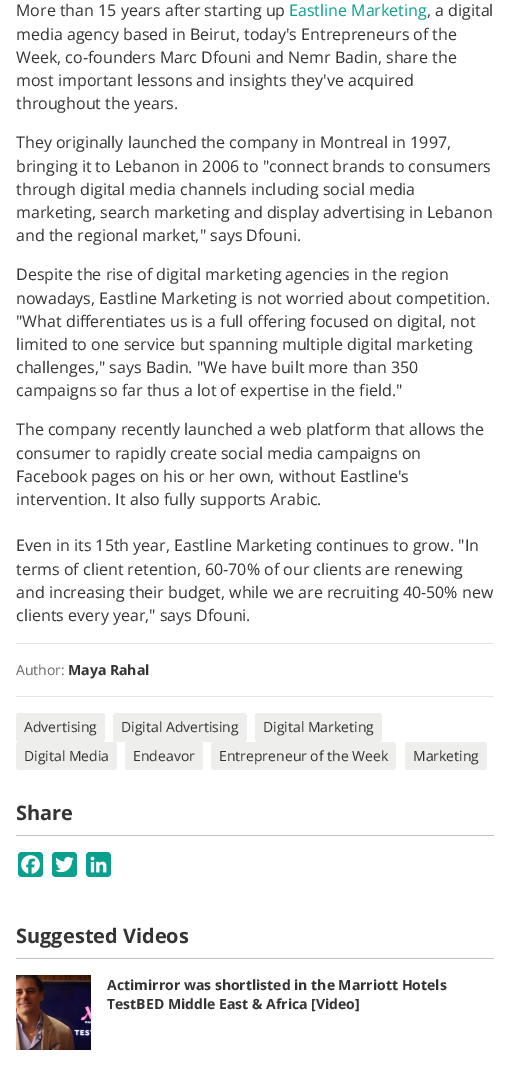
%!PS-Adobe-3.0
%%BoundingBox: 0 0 510 1067
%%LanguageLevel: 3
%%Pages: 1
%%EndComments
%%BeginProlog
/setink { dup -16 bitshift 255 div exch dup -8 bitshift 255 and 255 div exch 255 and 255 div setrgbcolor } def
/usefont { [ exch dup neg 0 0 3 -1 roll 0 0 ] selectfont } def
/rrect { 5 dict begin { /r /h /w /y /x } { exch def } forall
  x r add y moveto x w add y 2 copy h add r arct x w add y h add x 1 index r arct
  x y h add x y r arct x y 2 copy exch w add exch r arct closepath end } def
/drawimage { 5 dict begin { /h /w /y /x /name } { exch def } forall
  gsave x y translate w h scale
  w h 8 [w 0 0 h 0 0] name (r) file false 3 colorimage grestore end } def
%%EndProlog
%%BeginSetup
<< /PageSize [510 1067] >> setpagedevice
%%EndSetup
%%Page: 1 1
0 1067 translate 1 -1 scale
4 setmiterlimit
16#FFFFFF setink
0 0 510 1067 rectfill
/OpenSans-Regular 16 usefont
16#343434 setink
16 16 moveto (More than 15 years after starting up) show
16#0B9F8E setink
289 16 moveto (Eastline Marketing) show
16#343434 setink
[
    [(, a digital) 427 16]
    [(media agency based in Beirut, today's Entrepreneurs of the) 16 40]
    [(Week, co-founders Marc Dfouni and Nemr Badin, share the) 16 63]
    [(most important lessons and insights they've acquired) 16 86]
    [(throughout the years.) 16 109]
    [(They originally launched the company in Montreal in 1997,) 16 148]
    [(bringing it to Lebanon in 2006 to "connect brands to consumers) 16 172]
    [(through digital media channels including social media) 16 195]
    [(marketing, search marketing and display advertising in Lebanon) 16 218]
    [(and the regional market," says Dfouni.) 16 241]
    [(Despite the rise of digital marketing agencies in the region) 16 280]
    [(nowadays, Eastline Marketing is not worried about competition.) 16 304]
    [("What differentiates us is a full offering focused on digital, not) 16 327]
    [(limited to one service but spanning multiple digital marketing) 16 350]
    [(challenges," says Badin. "We have built more than 350) 16 373]
    [(campaigns so far thus a lot of expertise in the field.") 16 396]
    [(The company recently launched a web platform that allows the) 16 435]
    [(consumer to rapidly create social media campaigns on) 16 459]
    [(Facebook pages on his or her own, without Eastline's) 16 482]
    [(intervention. It also fully supports Arabic.) 16 505]
    [(Even in its 15th year, Eastline Marketing continues to grow. "In) 16 551]
    [(terms of client retention, 60-70% of our clients are renewing) 16 575]
    [(and increasing their budget, while we are recruiting 40-50% new) 16 598]
    [(clients every year," says Dfouni.) 16 621]
] { aload pop moveto show } forall
16#E4E5E6 setink
16 643 478 1 rectfill
16 696 478 1 rectfill
/OpenSans-Regular 14 usefont
16#676A6C setink
16 675 moveto (Author:) show
/OpenSans-Bold 14 usefont
16#343434 setink
68 675 moveto (Maya Rahal) show
16#EEEEEC setink
16 713 89 29 3 rrect fill
/OpenSans-Regular 14 usefont
16#343434 setink
24 732 moveto (Advertising) show
16#EEEEEC setink
113 713 134 29 3 rrect fill
16#343434 setink
121 732 moveto (Digital Advertising) show
16#EEEEEC setink
255 713 127 29 3 rrect fill
16#343434 setink
263 732 moveto (Digital Marketing) show
16#EEEEEC setink
16 742 101 28 3 rrect fill
16#343434 setink
24 761 moveto (Digital Media) show
16#EEEEEC setink
125 742 78 28 3 rrect fill
16#343434 setink
133 761 moveto (Endeavor) show
16#EEEEEC setink
211 742 185 28 3 rrect fill
16#343434 setink
219 761 moveto (Entrepreneur of the Week) show
16#EEEEEC setink
405 742 82 28 3 rrect fill
16#343434 setink
413 761 moveto (Marketing) show
16#C1C2C2 setink
16 835 478 1 rectfill
/OpenSans-Bold 20 usefont
16#343434 setink
16 820 moveto (Share) show
16#0B9F8E setink
18 852 25 25 4 rrect fill
(img1.raw) 21 855 19 19 drawimage
52 852 25 25 4 rrect fill
(img2.raw) 55 856 19 17 drawimage
86 852 25 25 4 rrect fill
(img3.raw) 90 856 17 17 drawimage
16#C1C2C2 setink
16 958 478 1 rectfill
16#343434 setink
16 943 moveto (Suggested Videos) show
(img4.raw) 16 975 75 75 drawimage
/OpenSans-Bold 14 usefont
107 990 moveto (Actimirror was shortlisted in the Marriott Hotels) show
107 1009 moveto (TestBED Middle East & Africa [Video]) show
showpage
%%EOF
